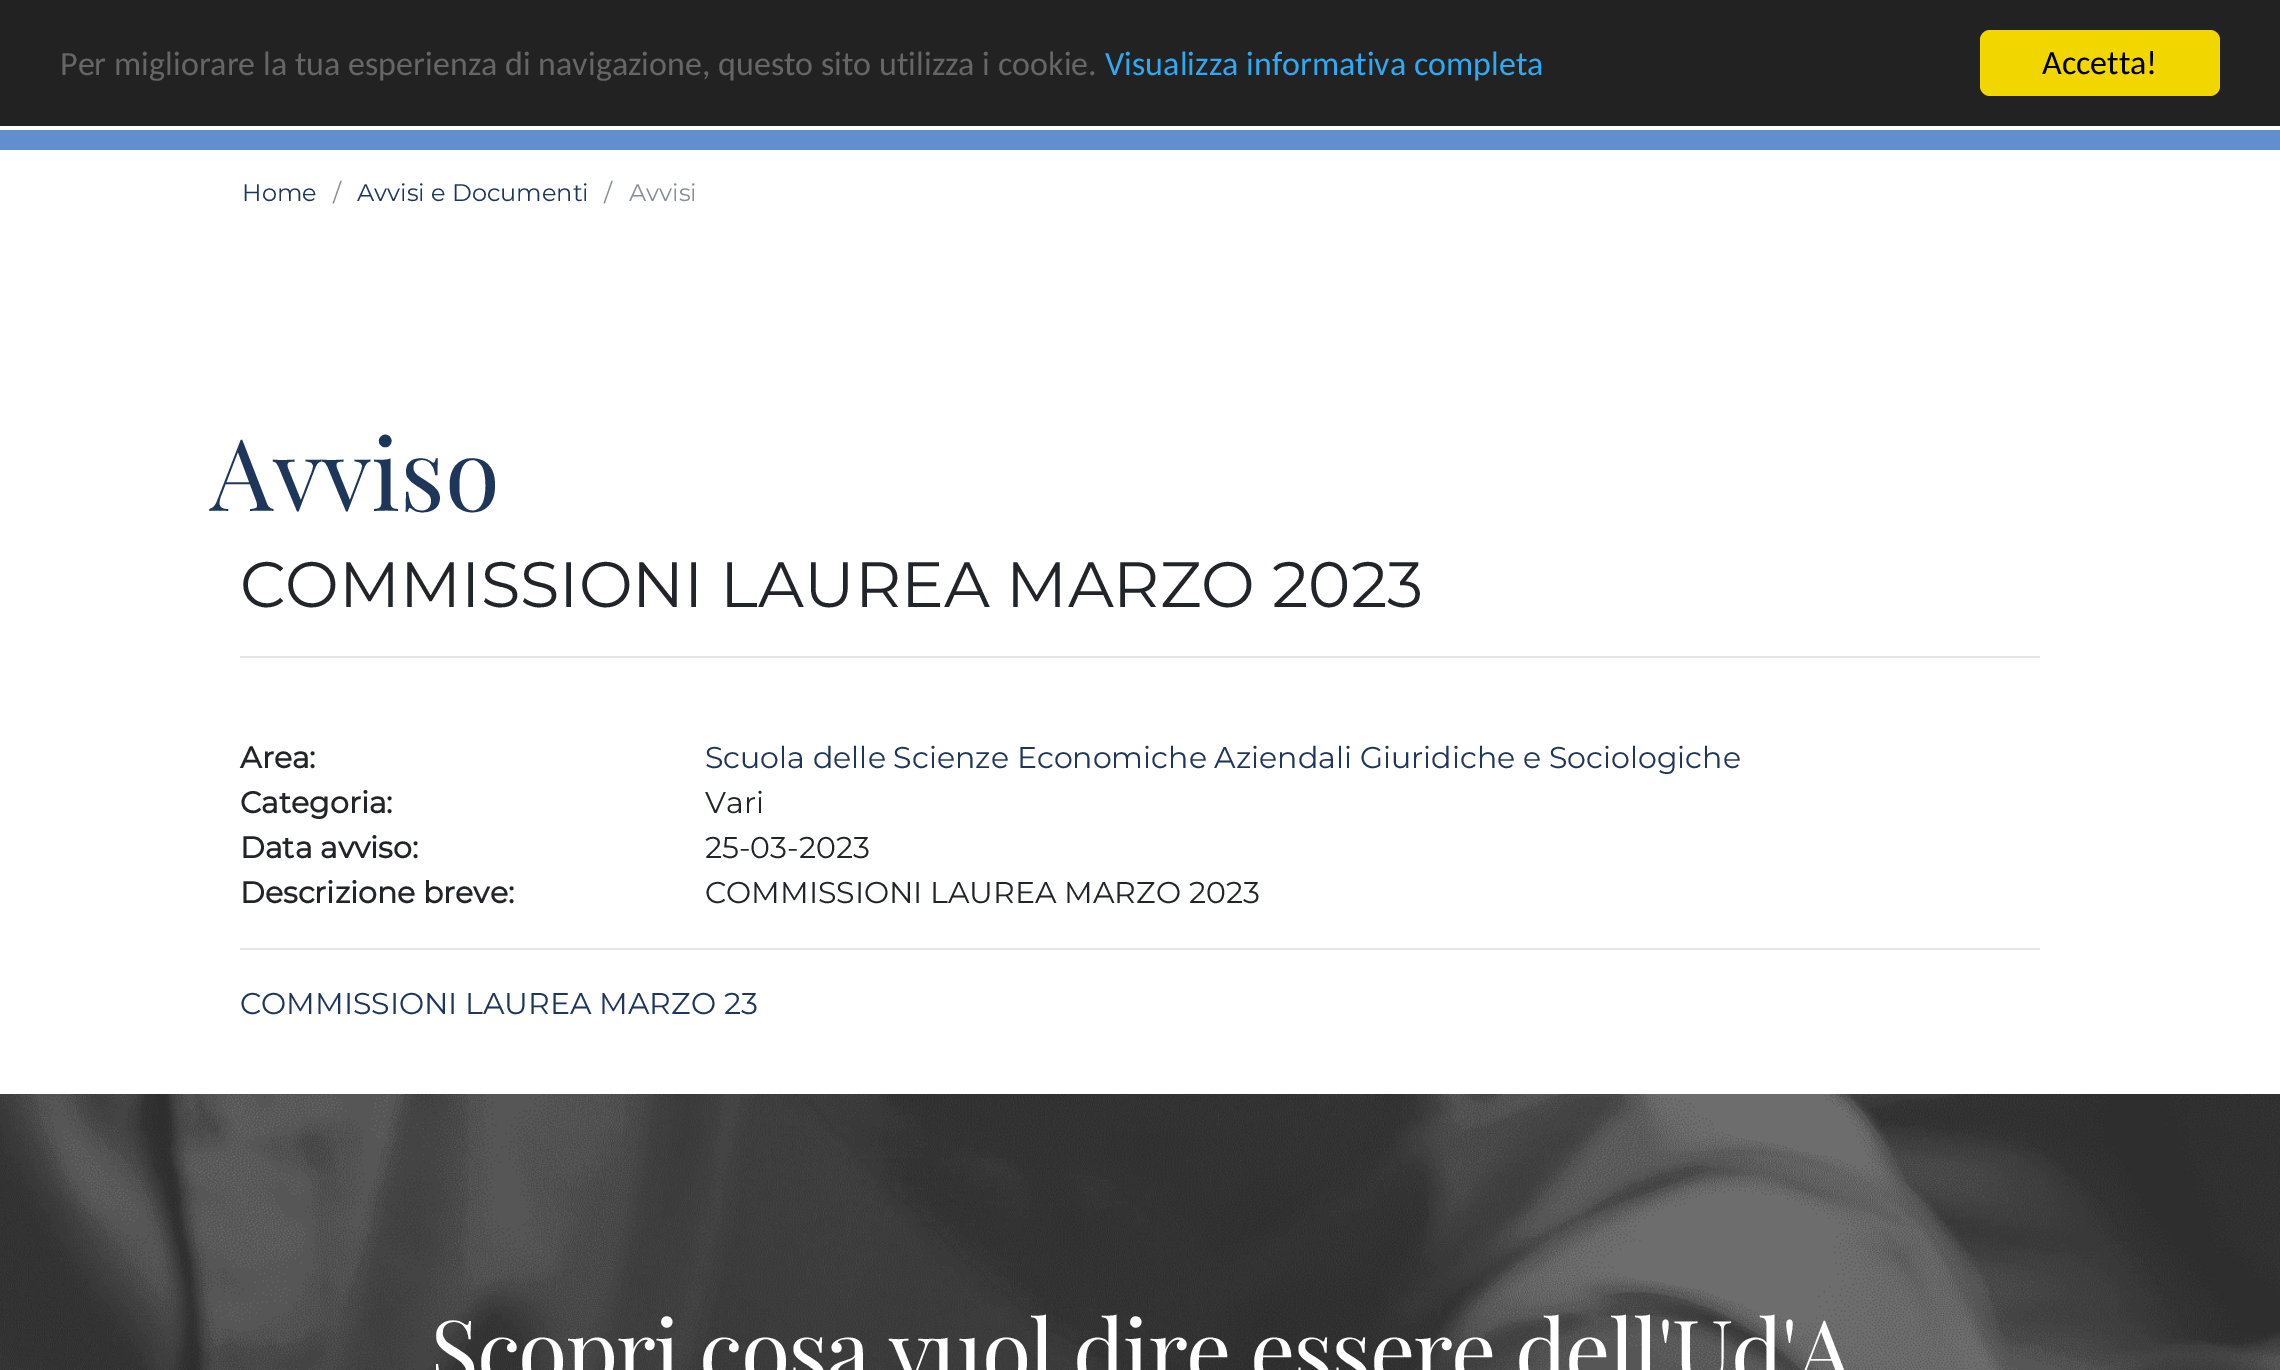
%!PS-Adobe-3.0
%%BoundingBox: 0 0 2280 1370
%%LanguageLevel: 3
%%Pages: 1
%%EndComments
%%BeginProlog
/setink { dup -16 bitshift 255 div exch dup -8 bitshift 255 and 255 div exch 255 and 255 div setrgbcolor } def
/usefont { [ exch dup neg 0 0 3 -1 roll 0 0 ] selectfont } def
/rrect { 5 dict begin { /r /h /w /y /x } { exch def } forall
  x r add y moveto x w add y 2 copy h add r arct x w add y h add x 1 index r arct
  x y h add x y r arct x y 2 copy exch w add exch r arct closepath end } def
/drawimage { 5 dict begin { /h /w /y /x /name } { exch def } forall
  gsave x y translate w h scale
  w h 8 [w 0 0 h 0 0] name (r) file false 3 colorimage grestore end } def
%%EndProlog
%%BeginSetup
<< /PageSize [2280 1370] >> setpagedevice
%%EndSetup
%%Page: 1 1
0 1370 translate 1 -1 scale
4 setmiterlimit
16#FFFFFF setink
0 0 2280 1370 rectfill
16#222222 setink
0 0 2280 126 rectfill
/Carlito-Regular 34 usefont
16#666666 setink
60 75 moveto (Per migliorare la tua esperienza di navigazione, questo sito utilizza i cookie.) show
16#31A8F0 setink
1105 75 moveto (Visualizza informativa completa) show
16#F1D600 setink
1980 30 240 66 10 rrect fill
16#000000 setink
2042 74 moveto (Accetta!) show
16#618ECC setink
0 130 2280 20 rectfill
/Montserrat-Regular 24 usefont
16#1E365A setink
242 201 moveto (Home) show
16#868E96 setink
333 201 moveto (/) show
16#1E365A setink
357 201 moveto (Avvisi e Documenti) show
16#868E96 setink
604 201 moveto (/) show
629 201 moveto (Avvisi) show
/PlayfairDisplay-Regular 100 usefont
16#1E365A setink
210 511 moveto (Avviso) show
/Montserrat-Regular 64 usefont
16#212529 setink
240 607 moveto (COMMISSIONI LAUREA MARZO 2023) show
16#E6E6E6 setink
240 656 1800 2 rectfill
/Montserrat-Bold 30 usefont
16#212529 setink
240 768 moveto (Area:) show
/Montserrat-Regular 30 usefont
16#1E365A setink
705 768 moveto (Scuola delle Scienze Economiche Aziendali Giuridiche e Sociologiche) show
/Montserrat-Bold 30 usefont
16#212529 setink
240 813 moveto (Categoria:) show
/Montserrat-Regular 30 usefont
705 813 moveto (Vari) show
/Montserrat-Bold 30 usefont
240 858 moveto (Data avviso:) show
/Montserrat-Regular 30 usefont
705 858 moveto (25-03-2023) show
/Montserrat-Bold 30 usefont
240 903 moveto (Descrizione breve:) show
/Montserrat-Regular 30 usefont
705 903 moveto (COMMISSIONI LAUREA MARZO 2023) show
16#E6E6E6 setink
240 948 1800 2 rectfill
16#1E365A setink
240 1014 moveto (COMMISSIONI LAUREA MARZO 23) show
(img1.raw) 0 1094 2280 276 drawimage
/PlayfairDisplay-Regular 90 usefont
16#FFFFFF setink
430 1385 moveto -2 0 (Scopri cosa vuol dire essere dell'Ud'A) ashow
showpage
%%EOF
